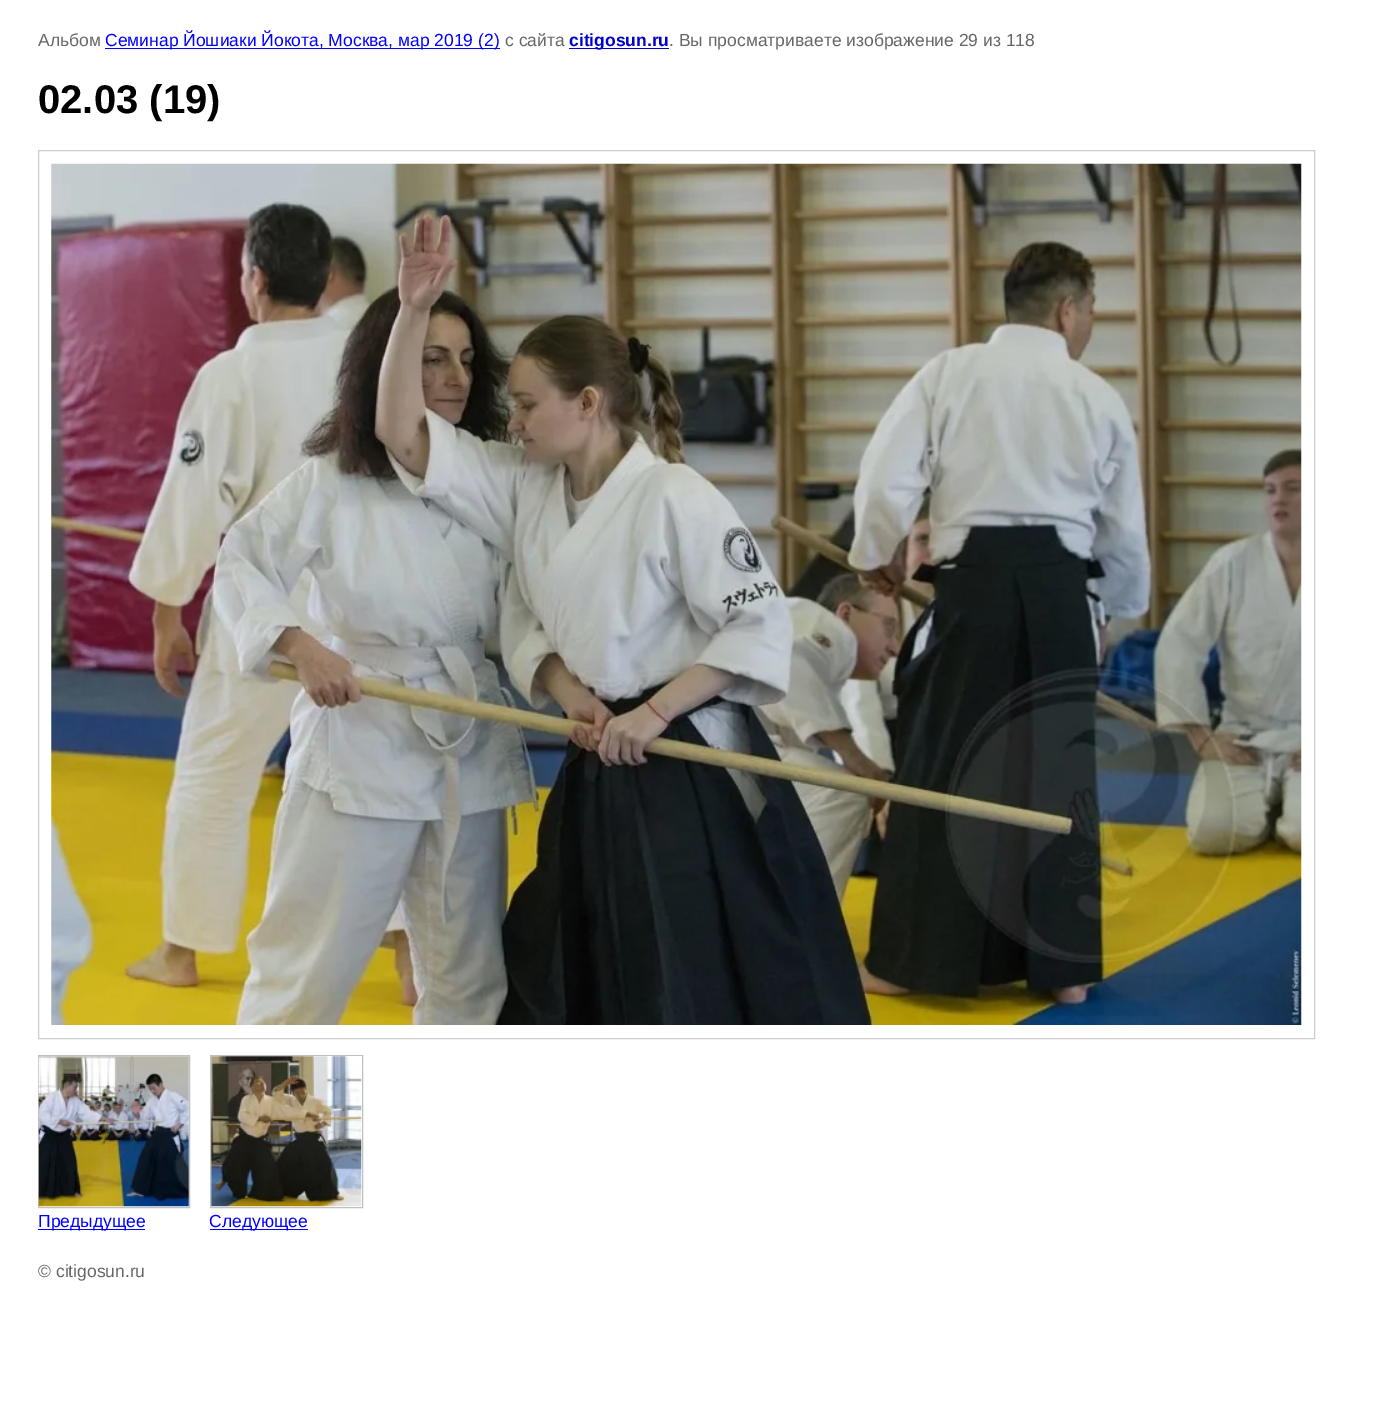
%!PS-Adobe-3.0
%%BoundingBox: 0 0 1388 1428
%%LanguageLevel: 3
%%Pages: 1
%%EndComments
%%BeginProlog
/setink { dup -16 bitshift 255 div exch dup -8 bitshift 255 and 255 div exch 255 and 255 div setrgbcolor } def
/usefont { [ exch dup neg 0 0 3 -1 roll 0 0 ] selectfont } def
/drawimage { 5 dict begin { /h /w /y /x /name } { exch def } forall
  gsave x y translate w h scale
  w h 8 [w 0 0 h 0 0] name (r) file false 3 colorimage grestore end } def
%%EndProlog
%%BeginSetup
<< /PageSize [1388 1428] >> setpagedevice
%%EndSetup
%%Page: 1 1
0 1428 translate 1 -1 scale
4 setmiterlimit
16#FFFFFF setink
0 0 1388 1428 rectfill
/LiberationSans-Regular 17.5 usefont
16#666666 setink
38 46 moveto (Альбом) show
16#0000FF setink
105 48 395 1 rectfill
105 46 moveto (Семинар Йошиаки Йокота, Москва, мар 2019 \(2\)) show
16#666666 setink
505 46 moveto (с сайта) show
16#0000CC setink
569 48 100 1 rectfill
/LiberationSans-Bold 17.5 usefont
569 46 moveto (citigosun.ru) show
/LiberationSans-Regular 17.5 usefont
16#666666 setink
669 46 moveto (. Вы просматриваете изображение 29 из 118) show
/LiberationSans-Bold 40 usefont
16#000000 setink
38 113 moveto (02.03 \(19\)) show
16#CCCCCC setink
38.5 150.5 1276 888 rectstroke
(img1.raw) 51 163 1251 862 drawimage
16#C0C0C0 setink
38.5 1055.5 151 152 rectstroke
(img2.raw) 38 1056 151 151 drawimage
16#0000FF setink
38 1229 107 1 rectfill
/LiberationSans-Regular 17.5 usefont
38 1227 moveto (Предыдущее) show
16#C0C0C0 setink
210.5 1055.5 152 152 rectstroke
(img3.raw) 211 1056 151 151 drawimage
16#0000FF setink
210 1229 98 1 rectfill
209 1227 moveto (Следующее) show
16#666666 setink
38 1277 moveto (© citigosun.ru) show
showpage
%%EOF
